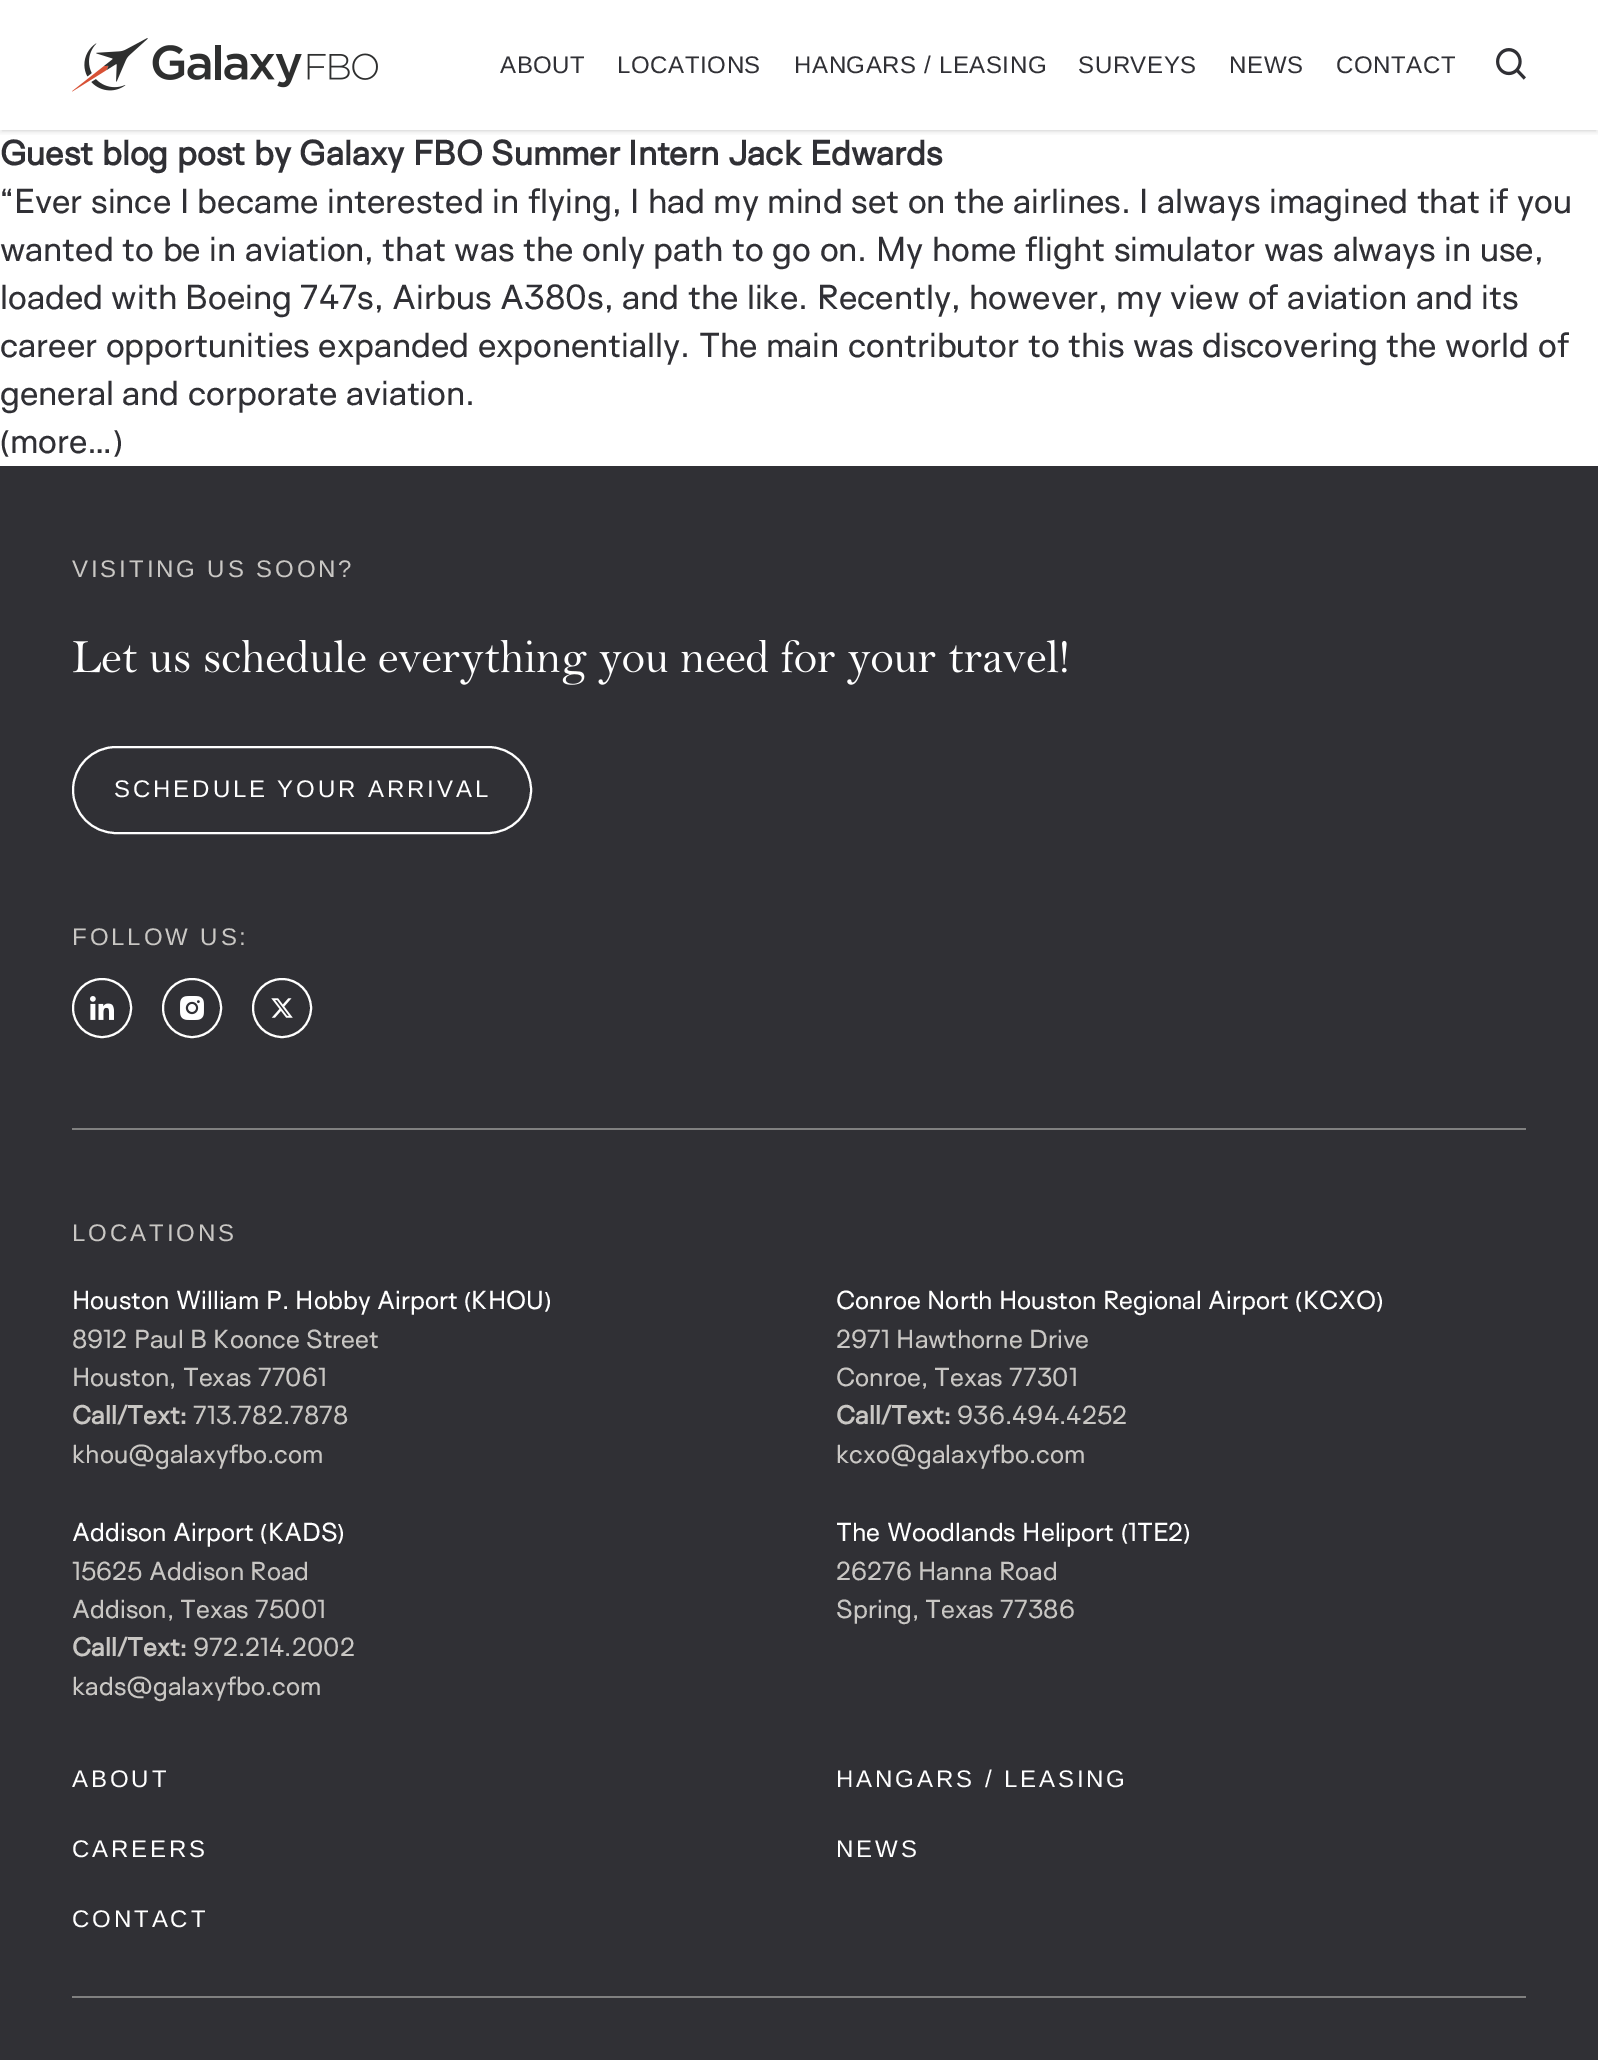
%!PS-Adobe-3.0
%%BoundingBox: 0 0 1598 2060
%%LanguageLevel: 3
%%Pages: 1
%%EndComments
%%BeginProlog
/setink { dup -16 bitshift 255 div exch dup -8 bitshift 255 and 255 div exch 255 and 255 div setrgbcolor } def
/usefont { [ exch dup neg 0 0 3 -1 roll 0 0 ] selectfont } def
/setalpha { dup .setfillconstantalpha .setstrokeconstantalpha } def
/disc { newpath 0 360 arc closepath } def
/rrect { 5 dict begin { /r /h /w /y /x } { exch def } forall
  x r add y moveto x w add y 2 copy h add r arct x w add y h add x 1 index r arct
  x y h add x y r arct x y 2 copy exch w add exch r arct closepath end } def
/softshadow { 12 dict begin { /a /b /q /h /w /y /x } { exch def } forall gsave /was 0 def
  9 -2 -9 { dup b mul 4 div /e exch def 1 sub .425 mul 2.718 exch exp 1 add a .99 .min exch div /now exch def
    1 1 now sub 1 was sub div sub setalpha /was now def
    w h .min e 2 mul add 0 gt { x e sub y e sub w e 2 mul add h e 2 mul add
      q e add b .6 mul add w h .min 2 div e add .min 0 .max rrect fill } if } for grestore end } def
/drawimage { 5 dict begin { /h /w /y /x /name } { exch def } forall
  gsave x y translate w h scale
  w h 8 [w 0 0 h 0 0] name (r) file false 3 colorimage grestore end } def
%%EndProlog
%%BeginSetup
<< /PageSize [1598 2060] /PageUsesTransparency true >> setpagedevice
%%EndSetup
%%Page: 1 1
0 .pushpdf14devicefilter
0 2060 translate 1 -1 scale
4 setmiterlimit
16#FFFFFF setink
0 0 1598 2060 rectfill
gsave
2 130 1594 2 rectclip
16#000000 setink
2 4 1594 126 0 2 0.1 softshadow
grestore
gsave
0 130 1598 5 rectclip
16#000000 setink
0 2 1598 130 0 3 0.1 softshadow
grestore
(img1.raw) 72 38 306 54 drawimage
/LiberationSans-Regular 24 usefont
16#303035 setink
500 73 moveto 0.6 0 (ABOUT) ashow
617 73 moveto 0.6 0 (LOCATIONS) ashow
794 73 moveto 0.6 0 (HANGARS / LEASING) ashow
1078 73 moveto 0.6 0 (SURVEYS) ashow
1229 73 moveto 0.6 0 (NEWS) ashow
1336 73 moveto 0.6 0 (CONTACT) ashow
(img2.raw) 1496 48 30 32 drawimage
/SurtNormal-Bold 32 usefont
0 165 moveto (Guest blog post by Galaxy FBO Summer Intern Jack Edwards) show
/SurtNormal-Regular 32 usefont
[
    [(“Ever since I became interested in flying, I had my mind set on the airlines. I always imagined that if you) 0 213]
    [(wanted to be in aviation, that was the only path to go on. My home flight simulator was always in use,) 0 261]
    [(loaded with Boeing 747s, Airbus A380s, and the like. Recently, however, my view of aviation and its) 0 309]
    [(career opportunities expanded exponentially. The main contributor to this was discovering the world of) 0 357]
    [(general and corporate aviation.) 0 405]
    [(\(more…\)) 0 453]
] { aload pop moveto show } forall
0 466 1598 1594 rectfill
/LiberationSans-Regular 24 usefont
16#C9C7C4 setink
72 577 moveto 2.9 0 (VISITING US SOON?) ashow
(img3.raw) 73 639 994 46 drawimage
16#FFFFFF setink
2 setlinewidth
73 747 458 86 43 rrect stroke
114 797 moveto 2.9 0 (SCHEDULE YOUR ARRIVAL) ashow
16#808080 setink
72 1128 1454 2 rectfill
16#C9C7C4 setink
72 945 moveto 2.9 0 (FOLLOW US:) ashow
16#FFFFFF setink
102 1008 29 disc stroke
(img4.raw) 90 996 24 24 drawimage
192 1008 29 disc stroke
(img5.raw) 180 996 24 24 drawimage
282 1008 29 disc stroke
(img6.raw) 271 998 22 20 drawimage
16#C9C7C4 setink
72 1241 moveto 2.9 0 (LOCATIONS) ashow
/SurtNormal-Regular 24 usefont
16#FFFFFF setink
72 1309 moveto (Houston William P. Hobby Airport \(KHOU\)) show
16#C9C7C4 setink
72 1348 moveto (8912 Paul B Koonce Street) show
72 1386 moveto (Houston, Texas 77061) show
/SurtNormal-Bold 24 usefont
72 1424 moveto (Call/Text:) show
/SurtNormal-Regular 24 usefont
193 1424 moveto (713.782.7878) show
72 1463 moveto (khou@galaxyfbo.com) show
16#FFFFFF setink
836 1309 moveto (Conroe North Houston Regional Airport \(KCXO\)) show
16#C9C7C4 setink
836 1348 moveto (2971 Hawthorne Drive) show
836 1386 moveto (Conroe, Texas 77301) show
/SurtNormal-Bold 24 usefont
836 1424 moveto (Call/Text:) show
/SurtNormal-Regular 24 usefont
957 1424 moveto (936.494.4252) show
836 1463 moveto (kcxo@galaxyfbo.com) show
16#FFFFFF setink
72 1541 moveto (Addison Airport \(KADS\)) show
16#C9C7C4 setink
72 1580 moveto (15625 Addison Road) show
72 1618 moveto (Addison, Texas 75001) show
/SurtNormal-Bold 24 usefont
72 1656 moveto (Call/Text:) show
/SurtNormal-Regular 24 usefont
193 1656 moveto (972.214.2002) show
72 1695 moveto (kads@galaxyfbo.com) show
16#FFFFFF setink
836 1541 moveto (The Woodlands Heliport \(1TE2\)) show
16#C9C7C4 setink
836 1580 moveto (26276 Hanna Road) show
836 1618 moveto (Spring, Texas 77386) show
/LiberationSans-Regular 24 usefont
16#FFFFFF setink
72 1787 moveto 2.9 0 (ABOUT) ashow
836 1787 moveto 2.9 0 (HANGARS / LEASING) ashow
72 1857 moveto 2.9 0 (CAREERS) ashow
836 1857 moveto 2.9 0 (NEWS) ashow
72 1927 moveto 2.9 0 (CONTACT) ashow
16#808080 setink
72 1996 1454 2 rectfill
.poppdf14devicefilter showpage
%%EOF
